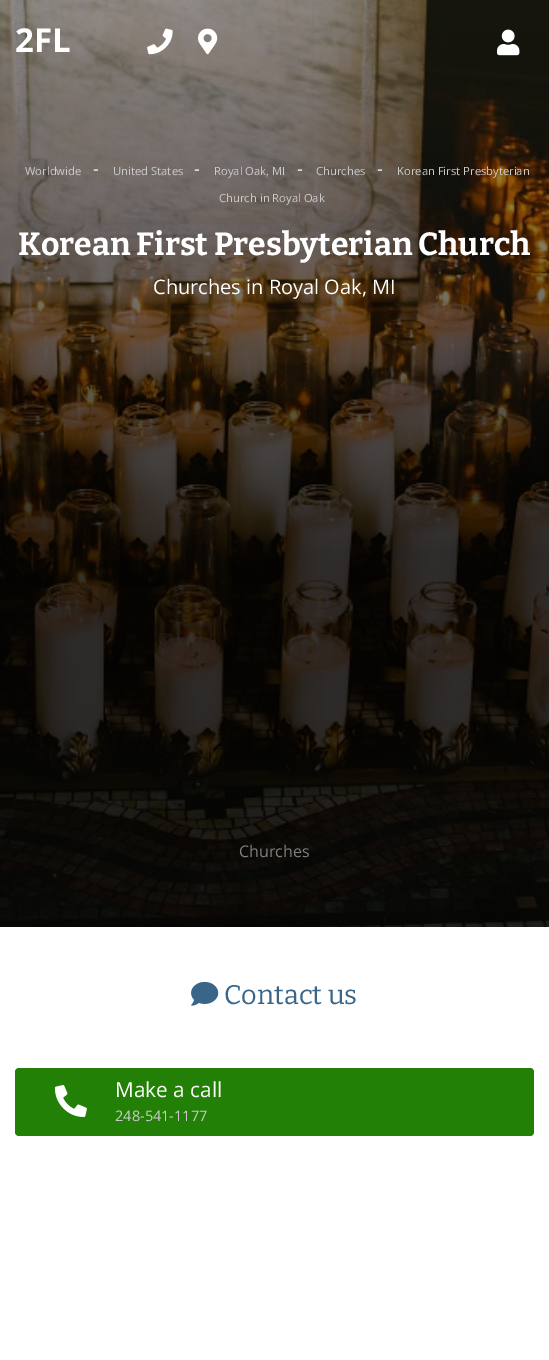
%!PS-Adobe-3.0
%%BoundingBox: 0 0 549 1360
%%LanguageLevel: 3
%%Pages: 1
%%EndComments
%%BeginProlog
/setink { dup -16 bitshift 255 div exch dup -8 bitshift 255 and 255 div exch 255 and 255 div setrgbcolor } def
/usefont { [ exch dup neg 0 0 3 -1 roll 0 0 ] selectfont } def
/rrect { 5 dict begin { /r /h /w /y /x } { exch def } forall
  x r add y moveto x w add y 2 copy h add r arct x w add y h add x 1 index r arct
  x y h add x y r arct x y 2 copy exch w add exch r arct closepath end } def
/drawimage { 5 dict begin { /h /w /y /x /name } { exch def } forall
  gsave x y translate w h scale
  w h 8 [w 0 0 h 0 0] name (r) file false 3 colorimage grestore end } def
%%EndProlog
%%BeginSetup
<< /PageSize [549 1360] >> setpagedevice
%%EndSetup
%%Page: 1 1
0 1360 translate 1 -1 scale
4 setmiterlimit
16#FFFFFF setink
0 0 549 1360 rectfill
(img4.raw) 0 0 549 927 drawimage
/OpenSans-Bold 33 usefont
15 52 moveto (2FL) show
(img1.raw) 497 29 23 27 drawimage
(img2.raw) 147 28 26 27 drawimage
(img3.raw) 198 28 20 27 drawimage
/OpenSans-Regular 11.25 usefont
16#CCCCCC setink
25 175 moveto (Worldwide) show
/OpenSans-Regular 18 usefont
16#FFFFFF setink
93 175 moveto (-) show
/OpenSans-Regular 11.25 usefont
16#CCCCCC setink
113 175 moveto (United States) show
/OpenSans-Regular 18 usefont
16#FFFFFF setink
194 175 moveto (-) show
/OpenSans-Regular 11.25 usefont
16#CCCCCC setink
214 175 moveto (Royal Oak, MI) show
/OpenSans-Regular 18 usefont
16#FFFFFF setink
297 175 moveto (-) show
/OpenSans-Regular 11.25 usefont
16#CCCCCC setink
316 175 moveto (Churches) show
/OpenSans-Regular 18 usefont
16#FFFFFF setink
377 175 moveto (-) show
/OpenSans-Regular 11.25 usefont
16#CCCCCC setink
397 175 moveto (Korean First Presbyterian) show
219 202 moveto (Church in Royal Oak) show
/Bitter-Bold 32 usefont
16#FFFFFF setink
18 255 moveto (Korean First Presbyterian Church) show
/OpenSans-Regular 20 usefont
153 294 moveto (Churches in Royal Oak, MI) show
/OpenSans-Regular 16 usefont
16#808080 setink
239 857 moveto (Churches) show
(img5.raw) 191 981 28 25 drawimage
/Bitter-Regular 27 usefont
16#396588 setink
224 1004 moveto (Contact us) show
16#228007 setink
15 1068 519 68 4 rrect fill
(img6.raw) 54 1085 33 32 drawimage
/OpenSans-Regular 20.75 usefont
16#FFFFFF setink
115 1097 moveto (Make a call) show
/OpenSans-Regular 14.5 usefont
16#CCCCCC setink
115 1121 moveto (248-541-1177) show
showpage
%%EOF
